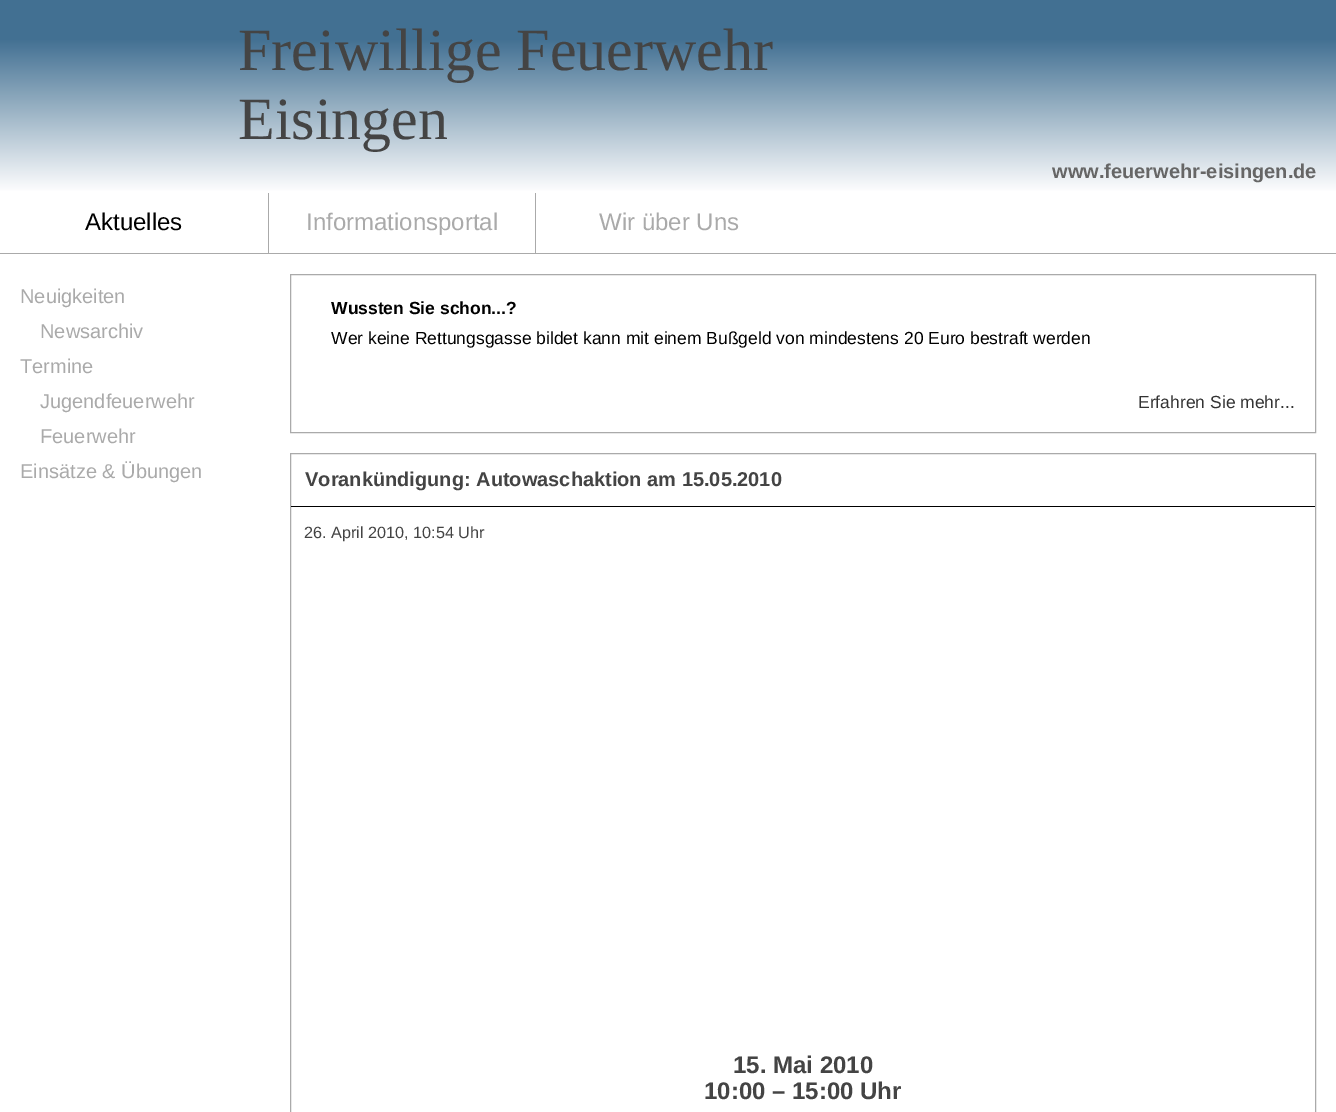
%!PS-Adobe-3.0
%%BoundingBox: 0 0 1336 1112
%%LanguageLevel: 3
%%Pages: 1
%%EndComments
%%BeginProlog
/setink { dup -16 bitshift 255 div exch dup -8 bitshift 255 and 255 div exch 255 and 255 div setrgbcolor } def
/usefont { [ exch dup neg 0 0 3 -1 roll 0 0 ] selectfont } def
%%EndProlog
%%BeginSetup
<< /PageSize [1336 1112] >> setpagedevice
%%EndSetup
%%Page: 1 1
0 1112 translate 1 -1 scale
4 setmiterlimit
16#FFFFFF setink
0 0 1336 1112 rectfill
gsave 0 0 moveto 1336 0 lineto 1336 191 lineto 0 191 lineto closepath clip newpath
<< /ShadingType 2 /ColorSpace /DeviceRGB /Coords [668 0 668 193] /Extend [true true] /Function << /FunctionType 3 /Domain [0 1] /Functions [<< /FunctionType 2 /Domain [0 1] /C0 [0.259 0.439 0.573] /C1 [0.259 0.439 0.573] /N 1 >> << /FunctionType 2 /Domain [0 1] /C0 [0.259 0.439 0.573] /C1 [1 1 1] /N 1 >>] /Bounds [0.2] /Encode [0 1 0 1] >> >> shfill grestore
/LiberationSerif-Regular 60 usefont
16#444444 setink
238 70 moveto (Freiwillige Feuerwehr) show
238 139 moveto (Eisingen) show
/LiberationSans-Bold 20 usefont
16#666666 setink
1052 178 moveto (www.feuerwehr-eisingen.de) show
16#AAAAAA setink
0 253 1336 1 rectfill
/LiberationSans-Regular 24 usefont
16#000000 setink
85 230 moveto (Aktuelles) show
16#AAAAAA setink
268 193 1 60 rectfill
306 230 moveto (Informationsportal) show
535 193 1 60 rectfill
599 230 moveto (Wir über Uns) show
/LiberationSans-Regular 20 usefont
[
    [(Neuigkeiten) 20 303]
    [(Newsarchiv) 40 338]
    [(Termine) 20 373]
    [(Jugendfeuerwehr) 40 408]
    [(Feuerwehr) 40 443]
    [(Einsätze & Übungen) 20 478]
] { aload pop moveto show } forall
290.5 274.5 1025 158 rectstroke
/LiberationSans-Bold 17.5 usefont
16#000000 setink
331 314 moveto (Wussten Sie schon...?) show
/LiberationSans-Regular 17.5 usefont
331 344 moveto (Wer keine Rettungsgasse bildet kann mit einem Bußgeld von mindestens 20 Euro bestraft werden) show
16#333333 setink
1138 408 moveto (Erfahren Sie mehr...) show
16#AAAAAA setink
290.5 453.5 1025 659 rectstroke
16#000000 setink
291 506 1024 1 rectfill
/LiberationSans-Bold 20 usefont
16#444444 setink
305 486 moveto (Vorankündigung: Autowaschaktion am 15.05.2010) show
/LiberationSans-Regular 16.25 usefont
304 538 moveto (26. April 2010, 10:54 Uhr) show
/LiberationSans-Bold 24 usefont
733 1073 moveto (15. Mai 2010) show
704 1099 moveto (10:00 – 15:00 Uhr) show
showpage
%%EOF
